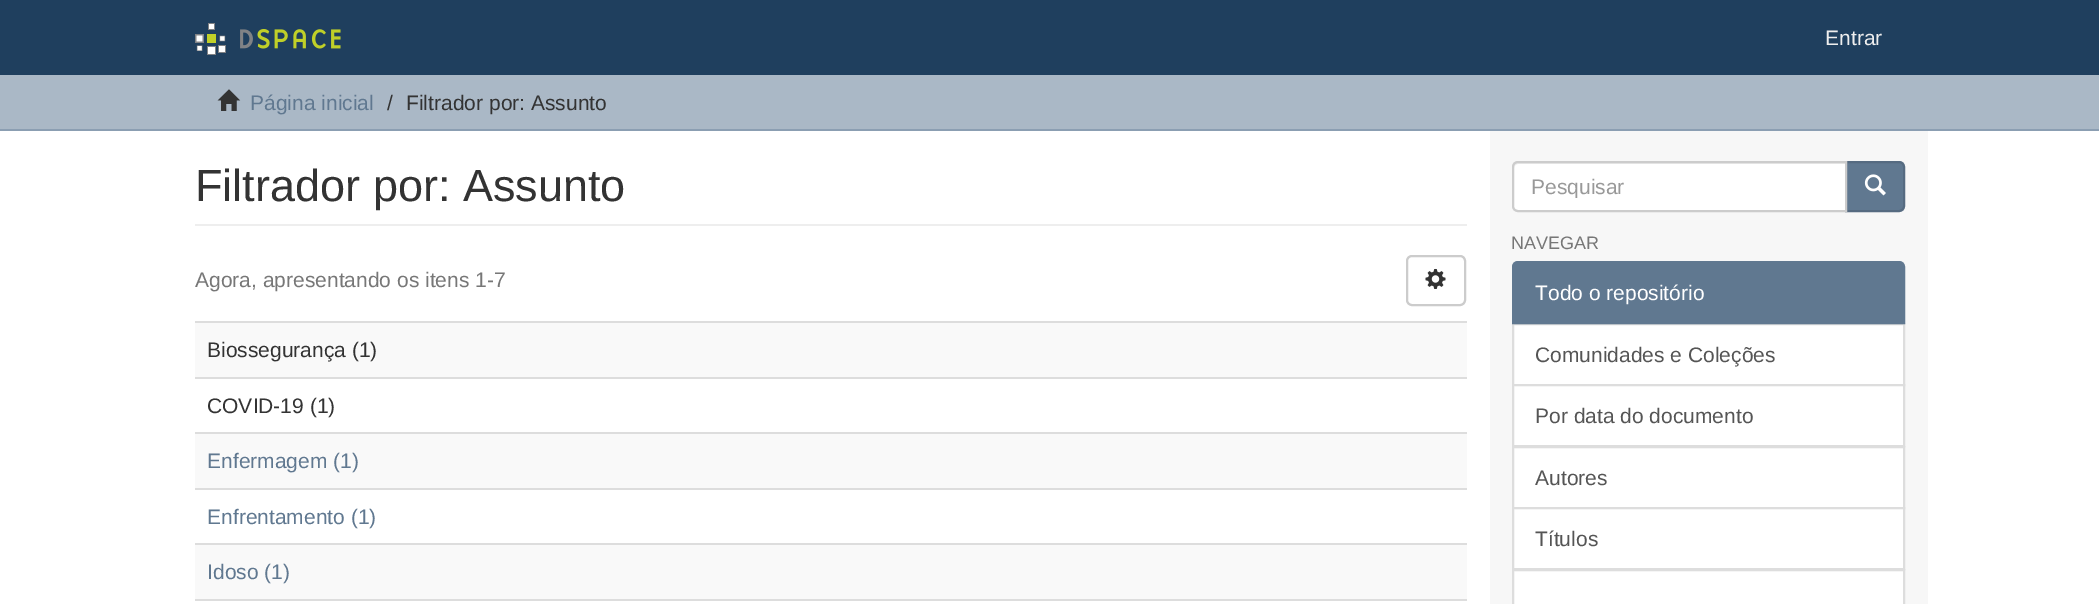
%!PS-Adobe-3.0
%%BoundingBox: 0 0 2099 604
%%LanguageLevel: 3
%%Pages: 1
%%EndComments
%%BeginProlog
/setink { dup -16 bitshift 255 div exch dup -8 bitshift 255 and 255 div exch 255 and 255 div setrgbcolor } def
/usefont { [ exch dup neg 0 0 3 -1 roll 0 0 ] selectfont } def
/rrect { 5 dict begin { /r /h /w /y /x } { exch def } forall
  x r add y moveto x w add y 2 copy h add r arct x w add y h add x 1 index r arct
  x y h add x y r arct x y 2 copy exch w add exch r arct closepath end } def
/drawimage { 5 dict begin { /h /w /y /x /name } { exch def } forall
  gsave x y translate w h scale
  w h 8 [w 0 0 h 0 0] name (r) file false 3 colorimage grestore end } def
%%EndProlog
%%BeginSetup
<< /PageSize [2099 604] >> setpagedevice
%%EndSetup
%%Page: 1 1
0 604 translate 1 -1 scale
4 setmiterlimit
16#FFFFFF setink
0 0 2099 604 rectfill
16#1F3F5E setink
0 0 2099 75 rectfill
(img1.raw) 195 23 146 32 drawimage
/LiberationSans-Regular 21 usefont
16#EEEEEE setink
1825 45 moveto (Entrar) show
16#AAB8C6 setink
0 75 2099 54 rectfill
16#8B9EB2 setink
0 129 2099 2 rectfill
(img2.raw) 217 89 24 22 drawimage
16#607890 setink
250 110 moveto (Página inicial) show
16#333333 setink
387 110 moveto (/) show
406 110 moveto (Filtrador por: Assunto) show
16#F7F7F7 setink
1490 131 438 473 rectfill
16#EEEEEE setink
195 224 1272 2 rectfill
/LiberationSans-Regular 45 usefont
16#333333 setink
195 201 moveto (Filtrador por: Assunto) show
/LiberationSans-Regular 21 usefont
16#777777 setink
195 287 moveto (Agora, apresentando os itens 1-7) show
16#CCCCCC setink
2 setlinewidth
1407 256 58 49 5 rrect stroke
(img3.raw) 1425 268 21 21 drawimage
16#F9F9F9 setink
195 323 1272 54 rectfill
16#DDDDDD setink
195 321 1272 2 rectfill
16#333333 setink
207 357 moveto (Biossegurança \(1\)) show
16#DDDDDD setink
195 377 1272 2 rectfill
16#333333 setink
207 413 moveto (COVID-19 \(1\)) show
16#F9F9F9 setink
195 434 1272 54 rectfill
16#DDDDDD setink
195 432 1272 2 rectfill
16#607890 setink
207 468 moveto (Enfermagem \(1\)) show
16#DDDDDD setink
195 488 1272 2 rectfill
16#607890 setink
207 524 moveto (Enfrentamento \(1\)) show
16#F9F9F9 setink
195 545 1272 54 rectfill
16#DDDDDD setink
195 543 1272 2 rectfill
16#607890 setink
207 579 moveto (Idoso \(1\)) show
16#DDDDDD setink
195 599 1272 2 rectfill
16#607890 setink
1846 162 moveto 1899 162 lineto 1902 162 1904 164 1904 167 curveto 1904 206 lineto 1904 209 1902 211 1899 211 curveto 1846 211 lineto closepath gsave fill grestore
16#566B81 setink
stroke
16#FFFFFF setink
1518 161 moveto 1847 161 lineto 1847 212 lineto 1518 212 lineto 1514.5 212 1512 209.5 1512 206 curveto 1512 167 lineto 1512 163.5 1514.5 161 1518 161 curveto closepath fill
16#ECECEC setink
1518 164 moveto 1845 164 lineto 1845 162 lineto 1519 162 lineto 1516 162 1514 165 1514 168 curveto 1514 166 1516 164 1518 164 curveto closepath fill
16#CCCCCC setink
1518 162 moveto 1846 162 lineto 1846 211 lineto 1518 211 lineto 1515 211 1513 209 1513 206 curveto 1513 167 lineto 1513 164 1515 162 1518 162 curveto closepath stroke
gsave
1532 174 295 24 rectclip
16#999999 setink
1531 194 moveto (Pesquisar) show
grestore
(img4.raw) 1864 174 22 22 drawimage
/LiberationSans-Regular 18 usefont
16#777777 setink
1511 249 moveto (NAVEGAR) show
16#FFFFFF setink
1513 324 moveto 1904 324 lineto 1904 385 lineto 1513 385 lineto closepath gsave fill grestore
16#DDDDDD setink
stroke
16#607890 setink
1518 262 moveto 1899 262 lineto 1902 262 1904 264 1904 267 curveto 1904 323 lineto 1513 323 lineto 1513 267 lineto 1513 264 1515 262 1518 262 curveto closepath gsave fill grestore
stroke
/LiberationSans-Regular 21 usefont
16#FFFFFF setink
1535 300 moveto (Todo o repositório) show
16#555555 setink
1535 362 moveto (Comunidades e Coleções) show
16#FFFFFF setink
1513 385 moveto 1904 385 lineto 1904 446 lineto 1513 446 lineto closepath gsave fill grestore
16#DDDDDD setink
stroke
16#555555 setink
1535 423 moveto (Por data do documento) show
16#FFFFFF setink
1513 447 moveto 1904 447 lineto 1904 508 lineto 1513 508 lineto closepath gsave fill grestore
16#DDDDDD setink
stroke
16#555555 setink
1535 485 moveto (Autores) show
16#FFFFFF setink
1513 508 moveto 1904 508 lineto 1904 569 lineto 1513 569 lineto closepath gsave fill grestore
16#DDDDDD setink
stroke
16#555555 setink
1535 546 moveto (Títulos) show
16#FFFFFF setink
1513 570 moveto 1904 570 lineto 1904 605 lineto 1513 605 lineto closepath gsave fill grestore
16#DDDDDD setink
stroke
showpage
%%EOF
